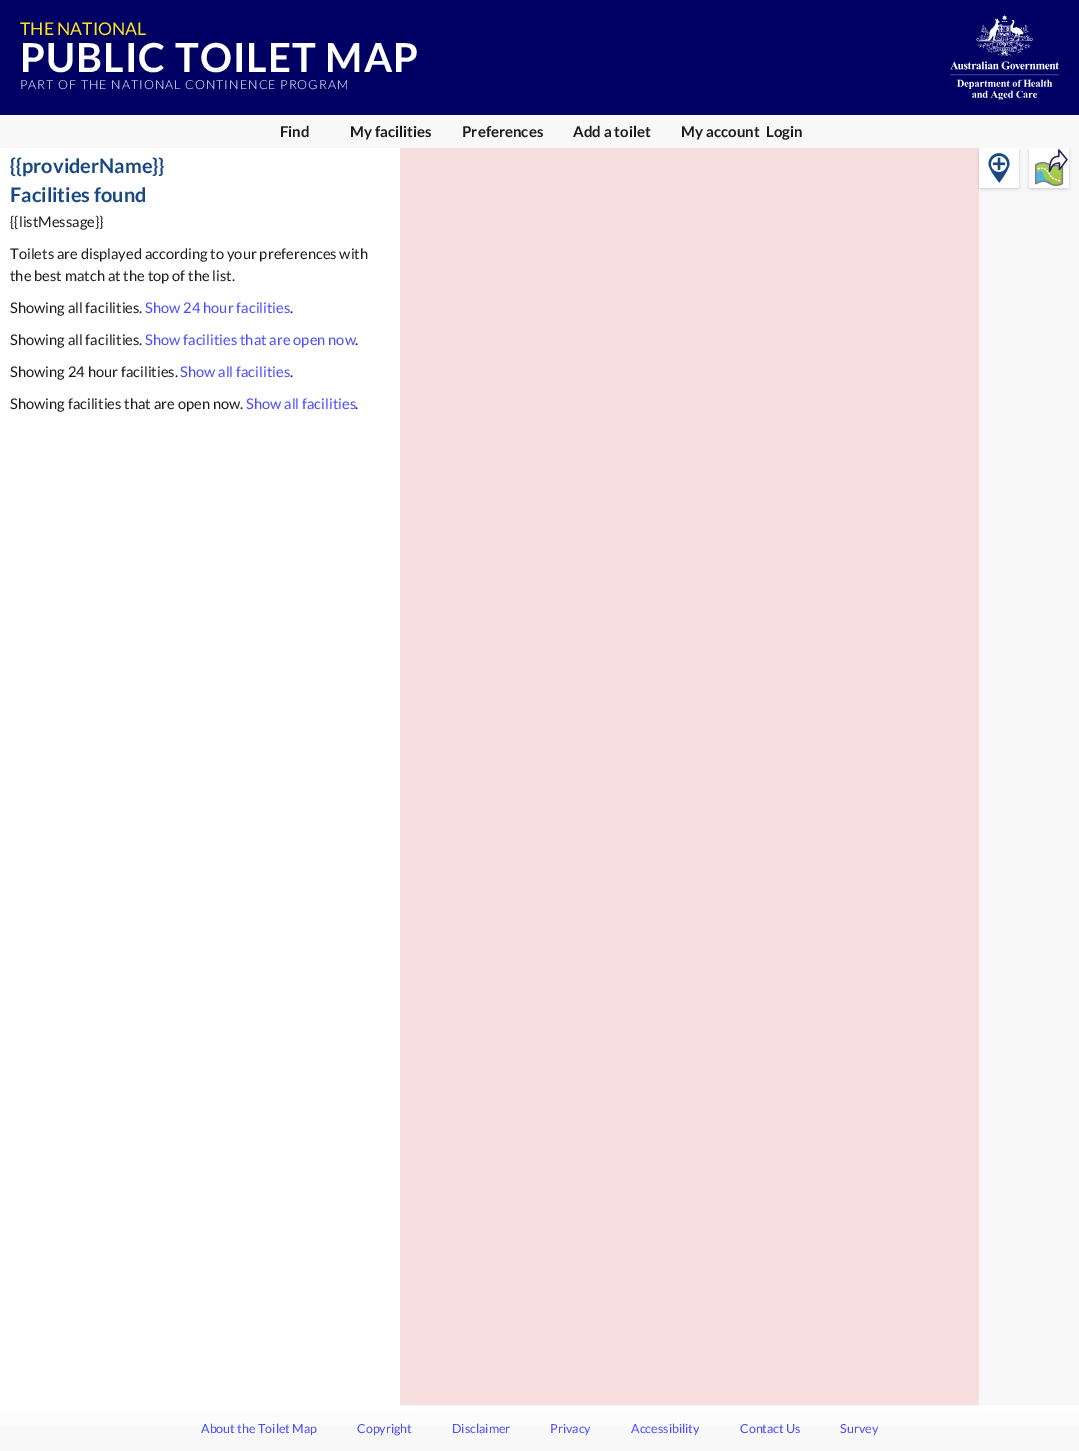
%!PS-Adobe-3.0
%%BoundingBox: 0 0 1079 1451
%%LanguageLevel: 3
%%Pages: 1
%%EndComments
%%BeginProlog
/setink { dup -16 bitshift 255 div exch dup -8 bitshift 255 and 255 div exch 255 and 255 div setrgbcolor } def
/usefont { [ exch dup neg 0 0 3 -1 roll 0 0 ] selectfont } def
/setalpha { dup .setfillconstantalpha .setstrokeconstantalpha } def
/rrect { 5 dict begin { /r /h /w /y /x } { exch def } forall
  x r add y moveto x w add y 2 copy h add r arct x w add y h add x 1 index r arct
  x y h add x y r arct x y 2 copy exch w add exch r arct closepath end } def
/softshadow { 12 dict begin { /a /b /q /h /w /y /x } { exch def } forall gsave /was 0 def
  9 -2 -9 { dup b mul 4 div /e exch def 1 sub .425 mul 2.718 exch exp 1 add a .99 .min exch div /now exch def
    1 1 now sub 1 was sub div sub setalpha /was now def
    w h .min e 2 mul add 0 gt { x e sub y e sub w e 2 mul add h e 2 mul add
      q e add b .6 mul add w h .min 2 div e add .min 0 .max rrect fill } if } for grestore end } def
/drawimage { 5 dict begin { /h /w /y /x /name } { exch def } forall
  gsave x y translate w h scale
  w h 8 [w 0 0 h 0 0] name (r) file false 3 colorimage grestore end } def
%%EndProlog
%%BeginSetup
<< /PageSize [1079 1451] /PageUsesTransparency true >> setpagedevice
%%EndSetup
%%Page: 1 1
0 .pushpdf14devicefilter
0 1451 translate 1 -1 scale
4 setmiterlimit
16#F8F8F8 setink
0 0 1079 1451 rectfill
16#000064 setink
0 0 1079 115 rectfill
/Lato-Regular 17.5 usefont
16#FCE51B setink
20 35 moveto (THE NATIONAL) show
/Lato-Bold 40 usefont
16#FFFFFF setink
20 72 moveto 1 0 (PUBLIC TOILET MAP) ashow
/Lato-Light 12.5 usefont
20 89 moveto 1 0 (PART OF THE NATIONAL CONTINENCE PROGRAM) ashow
(img1.raw) 950 15 109 85 drawimage
16#000000 setink
980 150 38 38 1 2 0.3 softshadow
1030 150 38 38 1 2 0.3 softshadow
16#F8F8F8 setink
979 146 90 2 rectfill
/Lato-Bold 15 usefont
16#1C1C1C setink
[
    [(Find) 280 137]
    [(My facilities) 350 137]
    [(Preferences) 462 137]
    [(Add a toilet) 573 137]
    [(My account) 681 137]
    [(Login) 766 137]
] { aload pop moveto show } forall
16#FFFFFF setink
0 148 400 1257 rectfill
/Lato-Bold 20 usefont
16#194984 setink
10 173 moveto ({{providerName}}) show
10 202 moveto (Facilities found) show
/Lato-Regular 14.7 usefont
16#1C1C1C setink
[
    [({{listMessage}}) 10 227]
    [(Toilets are displayed according to your preferences with) 10 259]
    [(the best match at the top of the list.) 10 281]
    [(Showing all facilities.) 10 313]
] { aload pop moveto show } forall
16#4B4BFF setink
145 313 moveto (Show 24 hour facilities) show
16#1C1C1C setink
290 313 moveto (.) show
10 345 moveto (Showing all facilities.) show
16#4B4BFF setink
145 345 moveto (Show facilities that are open now) show
16#1C1C1C setink
355 345 moveto (.) show
10 377 moveto (Showing 24 hour facilities.) show
16#4B4BFF setink
180 377 moveto (Show all facilities) show
16#1C1C1C setink
290 377 moveto (.) show
10 409 moveto (Showing facilities that are open now.) show
16#4B4BFF setink
246 409 moveto (Show all facilities) show
16#1C1C1C setink
355 409 moveto (.) show
0.1 setalpha
16#FA0000 setink
400 148 579 1257 rectfill
1 setalpha
16#FFFFFF setink
979 148 40 40 2 rrect fill
(img2.raw) 988 153 22 30 drawimage
1029 148 40 40 2 rrect fill
(img3.raw) 1034 149 34 37 drawimage
gsave 0 1405 moveto 1079 1405 lineto 1079 1427 lineto 0 1427 lineto closepath clip newpath
<< /ShadingType 2 /ColorSpace /DeviceRGB /Coords [540 1405 540 1439] /Extend [true true] /Function << /FunctionType 2 /Domain [0 1] /C0 [1 1 1] /C1 [0.973 0.973 0.973] /N 1 >> >> shfill grestore
/Lato-Regular 12.5 usefont
16#4B4BFF setink
[
    [(About the Toilet Map) 201 1433]
    [(Copyright) 357 1433]
    [(Disclaimer) 452 1433]
    [(Privacy) 550 1433]
    [(Accessibility) 631 1433]
    [(Contact Us) 740 1433]
    [(Survey) 840 1433]
] { aload pop moveto show } forall
.poppdf14devicefilter showpage
%%EOF
